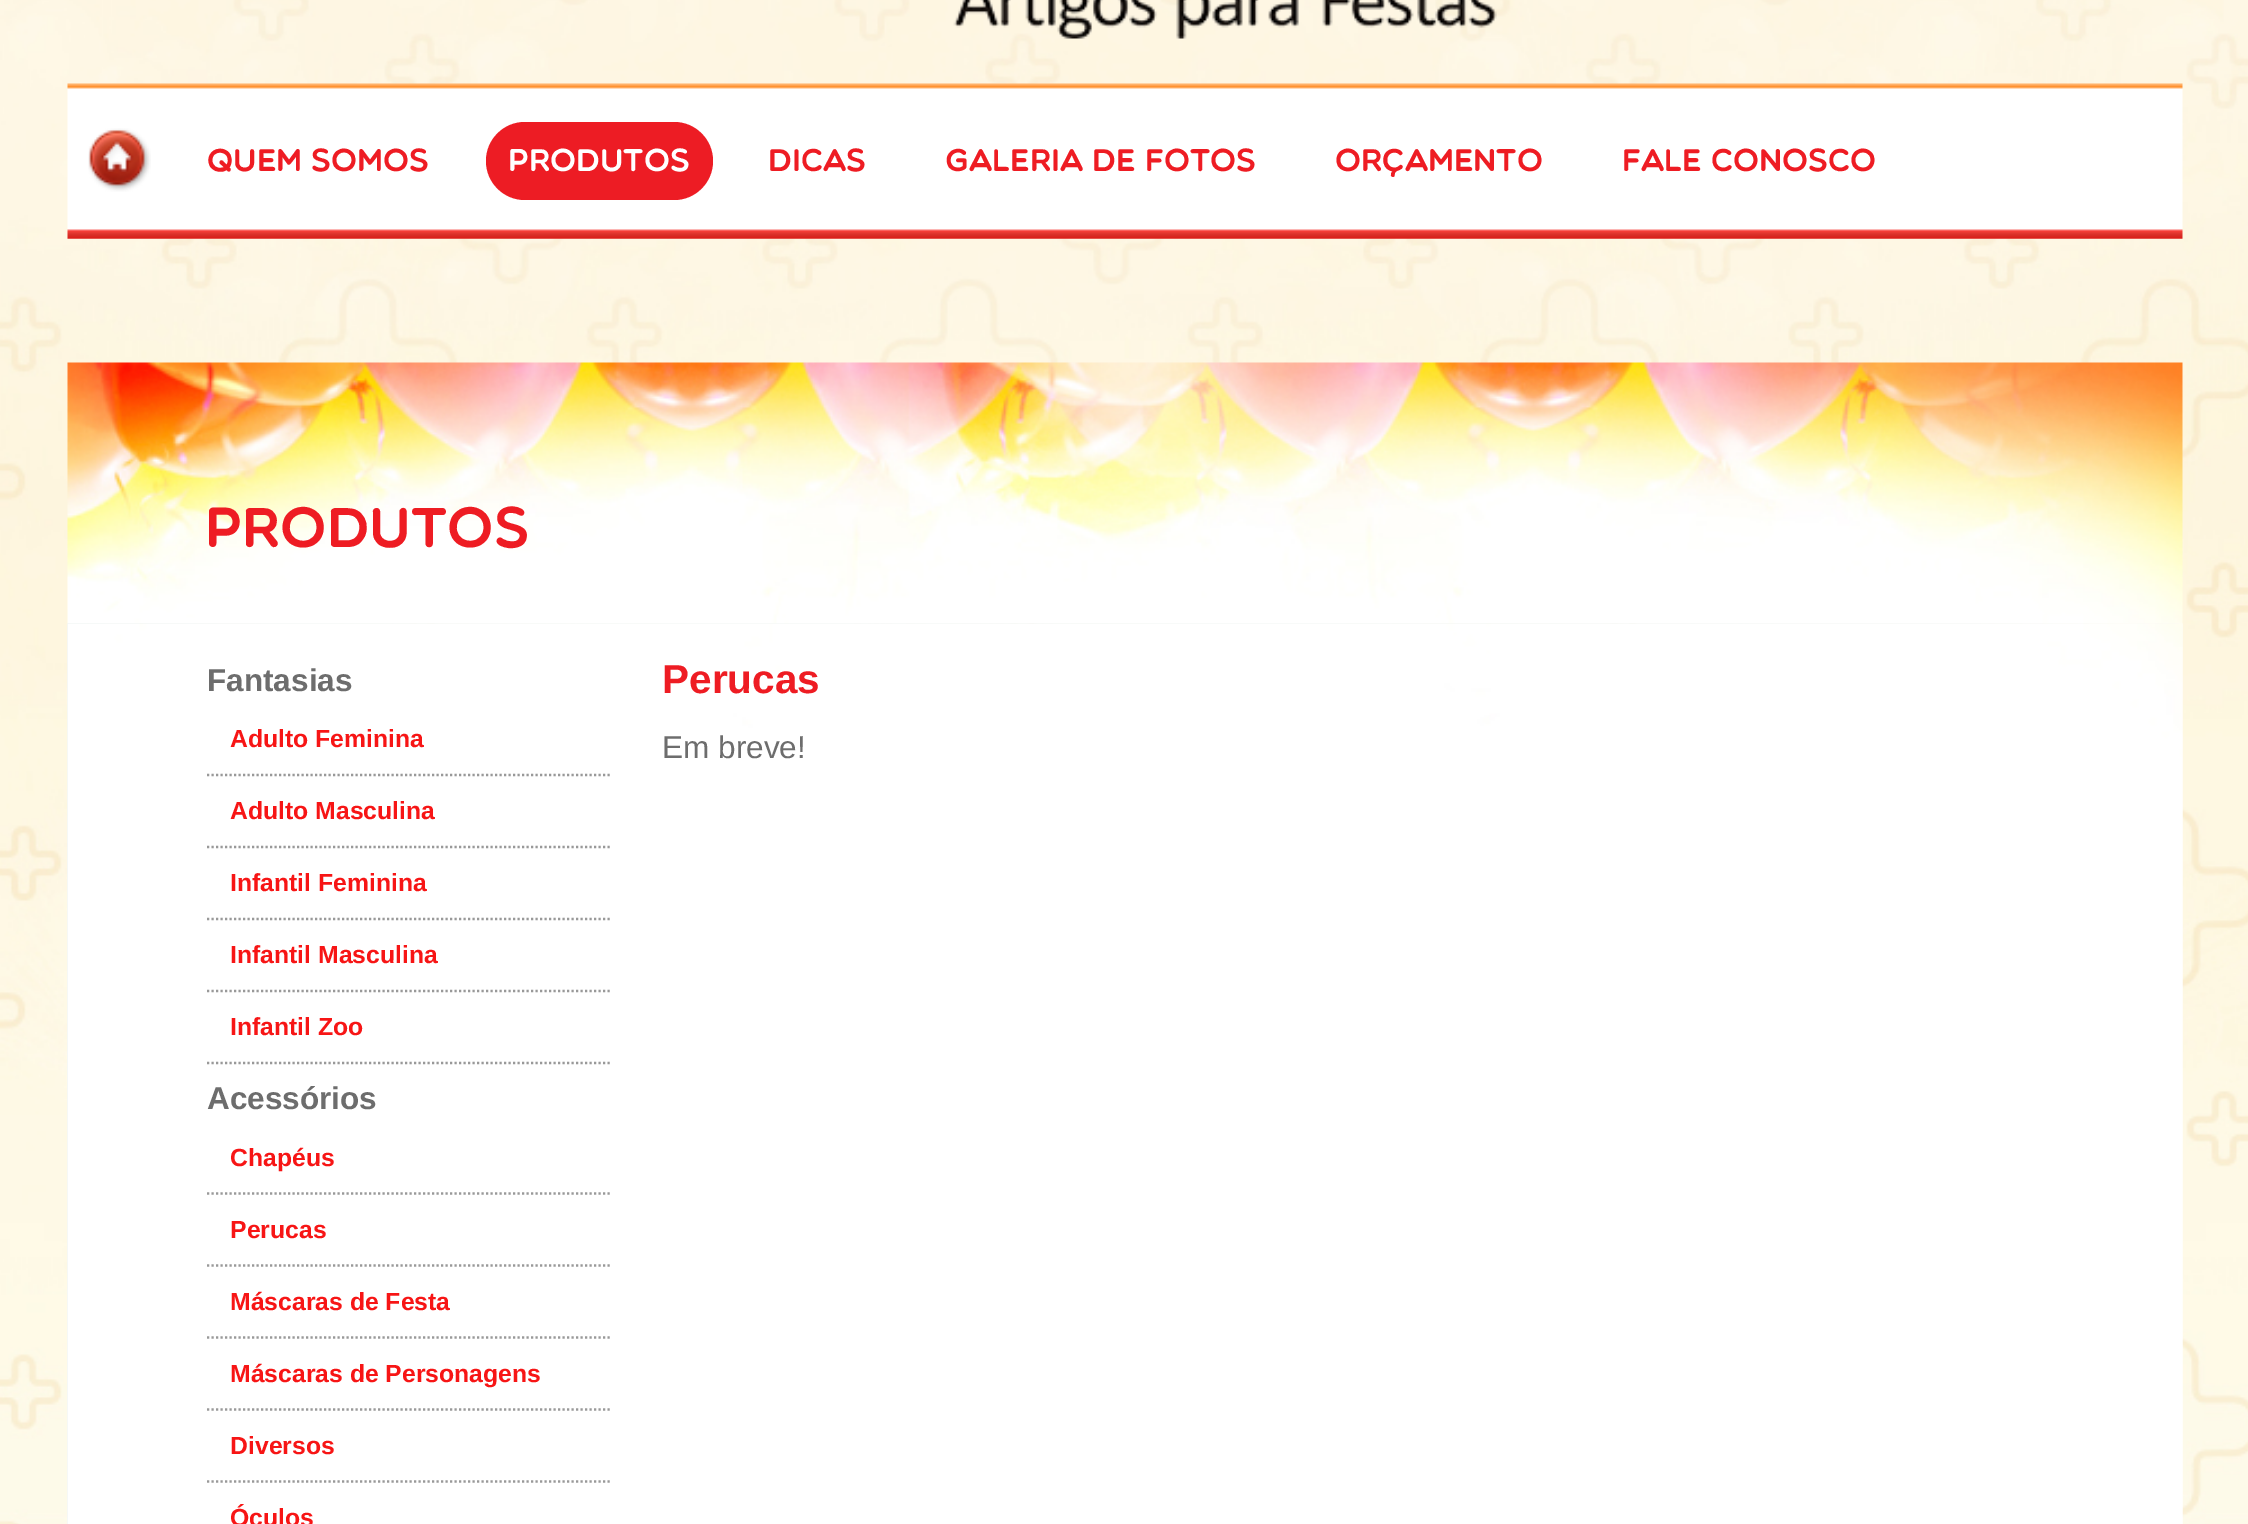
%!PS-Adobe-3.0
%%BoundingBox: 0 0 2248 1524
%%LanguageLevel: 3
%%Pages: 1
%%EndComments
%%BeginProlog
/setink { dup -16 bitshift 255 div exch dup -8 bitshift 255 and 255 div exch 255 and 255 div setrgbcolor } def
/usefont { [ exch dup neg 0 0 3 -1 roll 0 0 ] selectfont } def
/rrect { 5 dict begin { /r /h /w /y /x } { exch def } forall
  x r add y moveto x w add y 2 copy h add r arct x w add y h add x 1 index r arct
  x y h add x y r arct x y 2 copy exch w add exch r arct closepath end } def
/drawimage { 5 dict begin { /h /w /y /x /name } { exch def } forall
  gsave x y translate w h scale
  w h 8 [w 0 0 h 0 0] name (r) file false 3 colorimage grestore end } def
%%EndProlog
%%BeginSetup
<< /PageSize [2248 1524] >> setpagedevice
%%EndSetup
%%Page: 1 1
0 1524 translate 1 -1 scale
4 setmiterlimit
16#FFFFFF setink
0 0 2248 1524 rectfill
(img1.raw) 0 0 2248 1524 drawimage
(img2.raw) 953 0 544 39 drawimage
(img3.raw) 67 83 2116 156 drawimage
(img4.raw) 88 128 63 64 drawimage
/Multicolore-Bold 31.5 usefont
16#EE1C23 setink
207 171 moveto (Quem Somos) show
16#ED1C24 setink
486 122 227 78 39 rrect fill
16#FFFFFF setink
508 171 moveto (Produtos) show
16#EE1C23 setink
[
    [(Dicas) 768 171]
    [(Galeria de Fotos) 945 171]
    [(Orçamento) 1335 171]
    [(Fale Conosco) 1622 171]
] { aload pop moveto show } forall
(img5.raw) 67 362 2116 262 drawimage
/Multicolore-Bold 56.25 usefont
205 547 moveto (PRODUTOS) show
(img6.raw) 67 623 2116 901 drawimage
(img7.raw) 67 623 2116 901 drawimage
16#999999 setink
2.2 setlinewidth
[2.25 2.25] 0 setdash
207 1063 moveto 612 1063 lineto stroke
/LiberationSans-Bold 31.5 usefont
16#6D6D6D setink
207 691 moveto (Fantasias) show
16#999999 setink
207 775 moveto 612 775 lineto stroke
/LiberationSans-Bold 24.75 usefont
16#F71515 setink
230 747 moveto (Adulto Feminina) show
16#999999 setink
207 847 moveto 612 847 lineto stroke
16#F71515 setink
230 819 moveto (Adulto Masculina) show
16#999999 setink
207 919 moveto 612 919 lineto stroke
16#F71515 setink
230 891 moveto (Infantil Feminina) show
16#999999 setink
207 991 moveto 612 991 lineto stroke
16#F71515 setink
230 963 moveto (Infantil Masculina) show
230 1035 moveto (Infantil Zoo) show
/LiberationSans-Bold 31.5 usefont
16#6D6D6D setink
207 1109 moveto (Acessórios) show
16#999999 setink
207 1193.5 moveto 612 1193.5 lineto stroke
/LiberationSans-Bold 24.75 usefont
16#F71515 setink
230 1166 moveto (Chapéus) show
16#999999 setink
207 1265.5 moveto 612 1265.5 lineto stroke
16#F71515 setink
230 1238 moveto (Perucas) show
16#999999 setink
207 1337.5 moveto 612 1337.5 lineto stroke
16#F71515 setink
230 1310 moveto (Máscaras de Festa) show
16#999999 setink
207 1409.5 moveto 612 1409.5 lineto stroke
16#F71515 setink
230 1382 moveto (Máscaras de Personagens) show
16#999999 setink
207 1481.5 moveto 612 1481.5 lineto stroke
16#F71515 setink
230 1454 moveto (Diversos) show
230 1526 moveto (Óculos) show
/LiberationSans-Bold 40.5 usefont
16#EE1C23 setink
662 693 moveto (Perucas) show
/LiberationSans-Regular 31.5 usefont
16#6D6D6D setink
662 758 moveto (Em breve!) show
showpage
%%EOF
